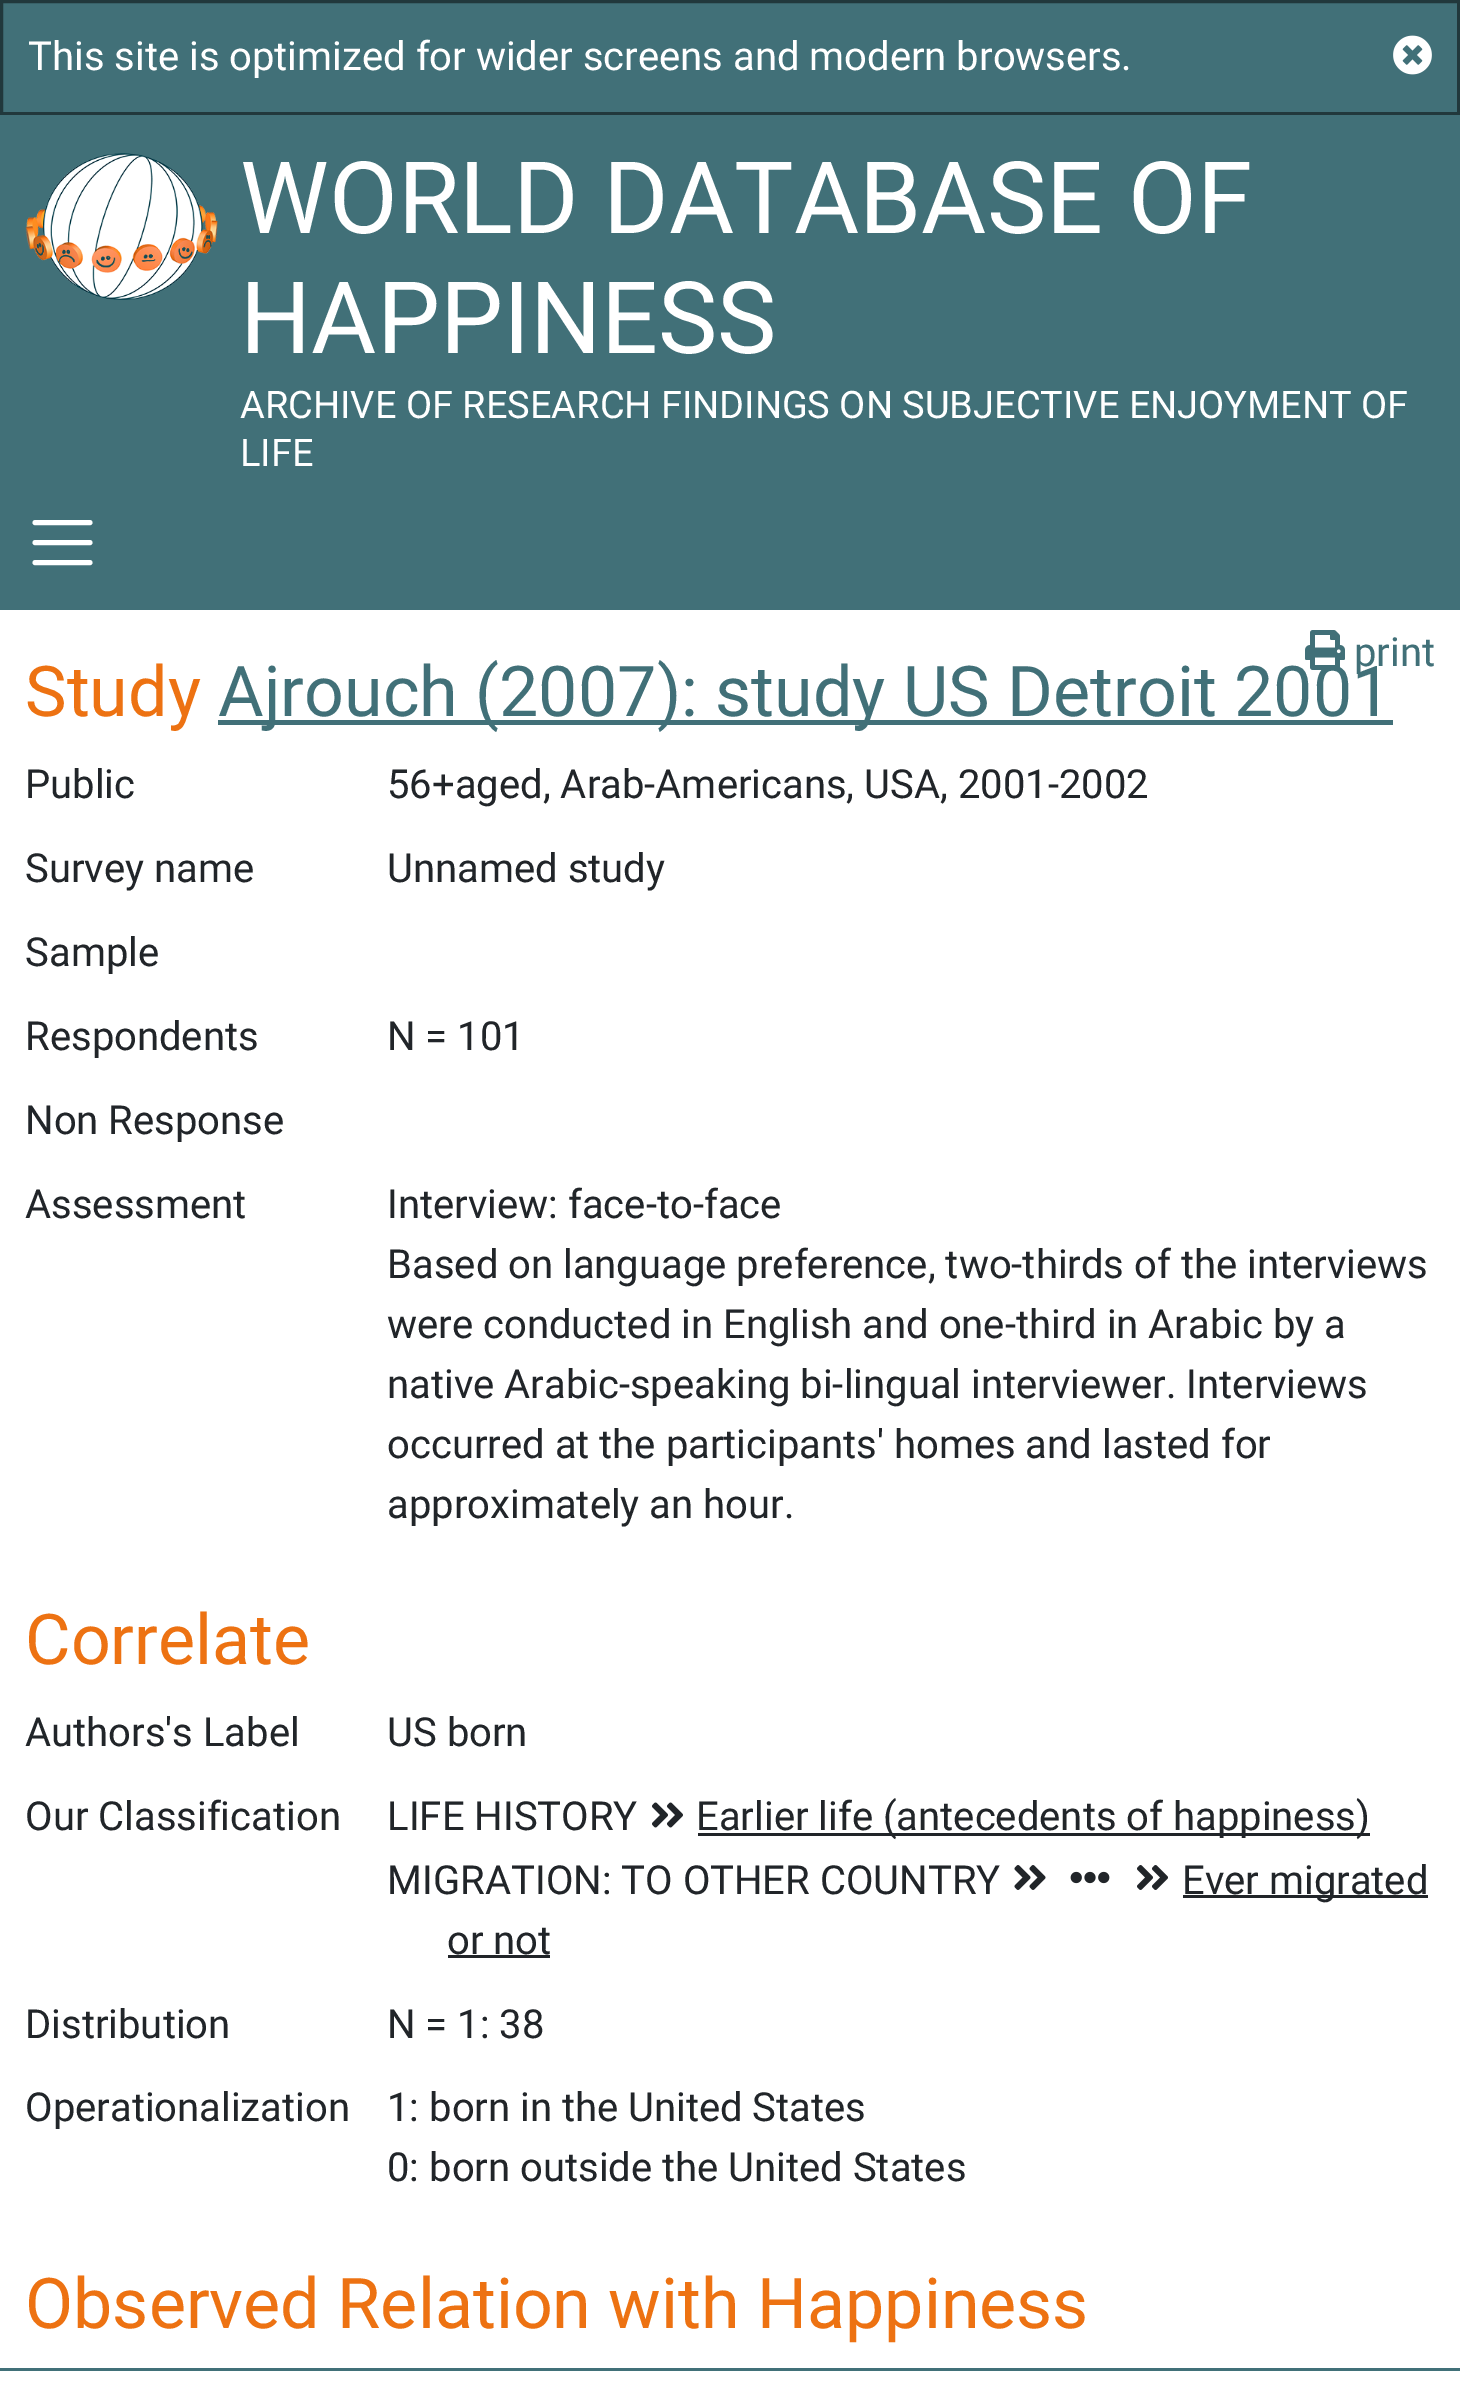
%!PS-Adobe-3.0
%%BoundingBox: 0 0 1460 2386
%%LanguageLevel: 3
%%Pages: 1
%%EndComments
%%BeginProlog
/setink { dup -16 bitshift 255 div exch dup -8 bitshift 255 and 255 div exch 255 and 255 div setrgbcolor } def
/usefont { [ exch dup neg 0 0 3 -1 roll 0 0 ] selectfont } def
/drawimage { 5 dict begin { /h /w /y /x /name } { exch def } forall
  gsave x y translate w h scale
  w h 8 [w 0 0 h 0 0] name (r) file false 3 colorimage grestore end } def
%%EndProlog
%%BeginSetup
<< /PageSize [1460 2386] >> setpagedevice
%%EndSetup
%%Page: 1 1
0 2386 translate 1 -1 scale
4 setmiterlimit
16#FFFFFF setink
0 0 1460 2386 rectfill
16#417078 setink
1.5 1.5 moveto 1458.5 1.5 lineto 1458.5 113.5 lineto 1.5 113.5 lineto closepath gsave fill grestore
16#21383C setink
3 setlinewidth
stroke
/Roboto-Regular 40 usefont
16#FFFFFF setink
28 70 moveto (This site is optimized for wider screens and modern browsers.) show
(img1.raw) 1393 35 39 40 drawimage
16#417078 setink
0 115 1460 495 rectfill
(img2.raw) 25 153 193 147 drawimage
/Roboto-Regular 100 usefont
16#FFFFFF setink
240 233 moveto (WORLD DATABASE OF) show
240 353 moveto (HAPPINESS) show
/Roboto-Regular 38 usefont
240 418 moveto (ARCHIVE OF RESEARCH FINDINGS ON SUBJECTIVE ENJOYMENT OF) show
240 466 moveto (LIFE) show
5 setlinewidth
1 setlinecap
35 522.5 moveto 90 522.5 lineto 35 542.5 moveto 90 542.5 lineto 35 562.5 moveto 90 562.5 lineto stroke
16#417078 setink
218 720 1175 5 rectfill
/Roboto-Regular 70 usefont
218 716 moveto (Ajrouch \(2007\): study US Detroit 2001) show
(img3.raw) 1305 630 40 40 drawimage
/Roboto-Regular 40 usefont
1354 666 moveto (print) show
/Roboto-Regular 70 usefont
16#ED7212 setink
25 716 moveto (Study) show
/Roboto-Regular 40 usefont
16#212529 setink
[
    [(Public) 25 798]
    [(56+aged, Arab-Americans, USA, 2001-2002) 387 798]
    [(Survey name) 25 882]
    [(Unnamed study) 387 882]
    [(Sample) 25 966]
    [(Respondents) 25 1050]
    [(N = 101) 387 1050]
    [(Non Response) 25 1134]
    [(Assessment) 25 1218]
    [(Interview: face-to-face) 387 1218]
    [(Based on language preference, two-thirds of the interviews) 387 1278]
    [(were conducted in English and one-third in Arabic by a) 387 1338]
    [(native Arabic-speaking bi-lingual interviewer. Interviews) 387 1398]
    [(occurred at the participants' homes and lasted for) 387 1458]
    [(approximately an hour.) 387 1518]
] { aload pop moveto show } forall
/Roboto-Regular 70 usefont
16#ED7212 setink
25 1664 moveto (Correlate) show
/Roboto-Regular 40 usefont
16#212529 setink
[
    [(Authors's Label) 25 1746]
    [(US born) 387 1746]
    [(Our Classification) 25 1830]
    [(LIFE HISTORY) 387 1830]
] { aload pop moveto show } forall
(img4.raw) 652 1802 31 26 drawimage
698 1833 672 3 rectfill
696 1830 moveto (Earlier life \(antecedents of happiness\)) show
(img5.raw) 1137 1865 31 25 drawimage
1183 1895 245 3 rectfill
1182 1894 moveto (Ever migrated) show
447 1954 moveto (or not) show
448 1955 102 3 rectfill
387 1894 moveto (MIGRATION: TO OTHER COUNTRY) show
(img6.raw) 1014 1865 32 25 drawimage
(img7.raw) 1070 1871 40 13 drawimage
[
    [(Distribution) 25 2038]
    [(N = 1: 38) 387 2038]
    [(Operationalization) 25 2121]
    [(1: born in the United States) 387 2121]
    [(0: born outside the United States) 387 2181]
] { aload pop moveto show } forall
/Roboto-Regular 70 usefont
16#ED7212 setink
25 2328 moveto (Observed Relation with Happiness) show
16#417078 setink
0 2368 1460 3 rectfill
showpage
%%EOF
